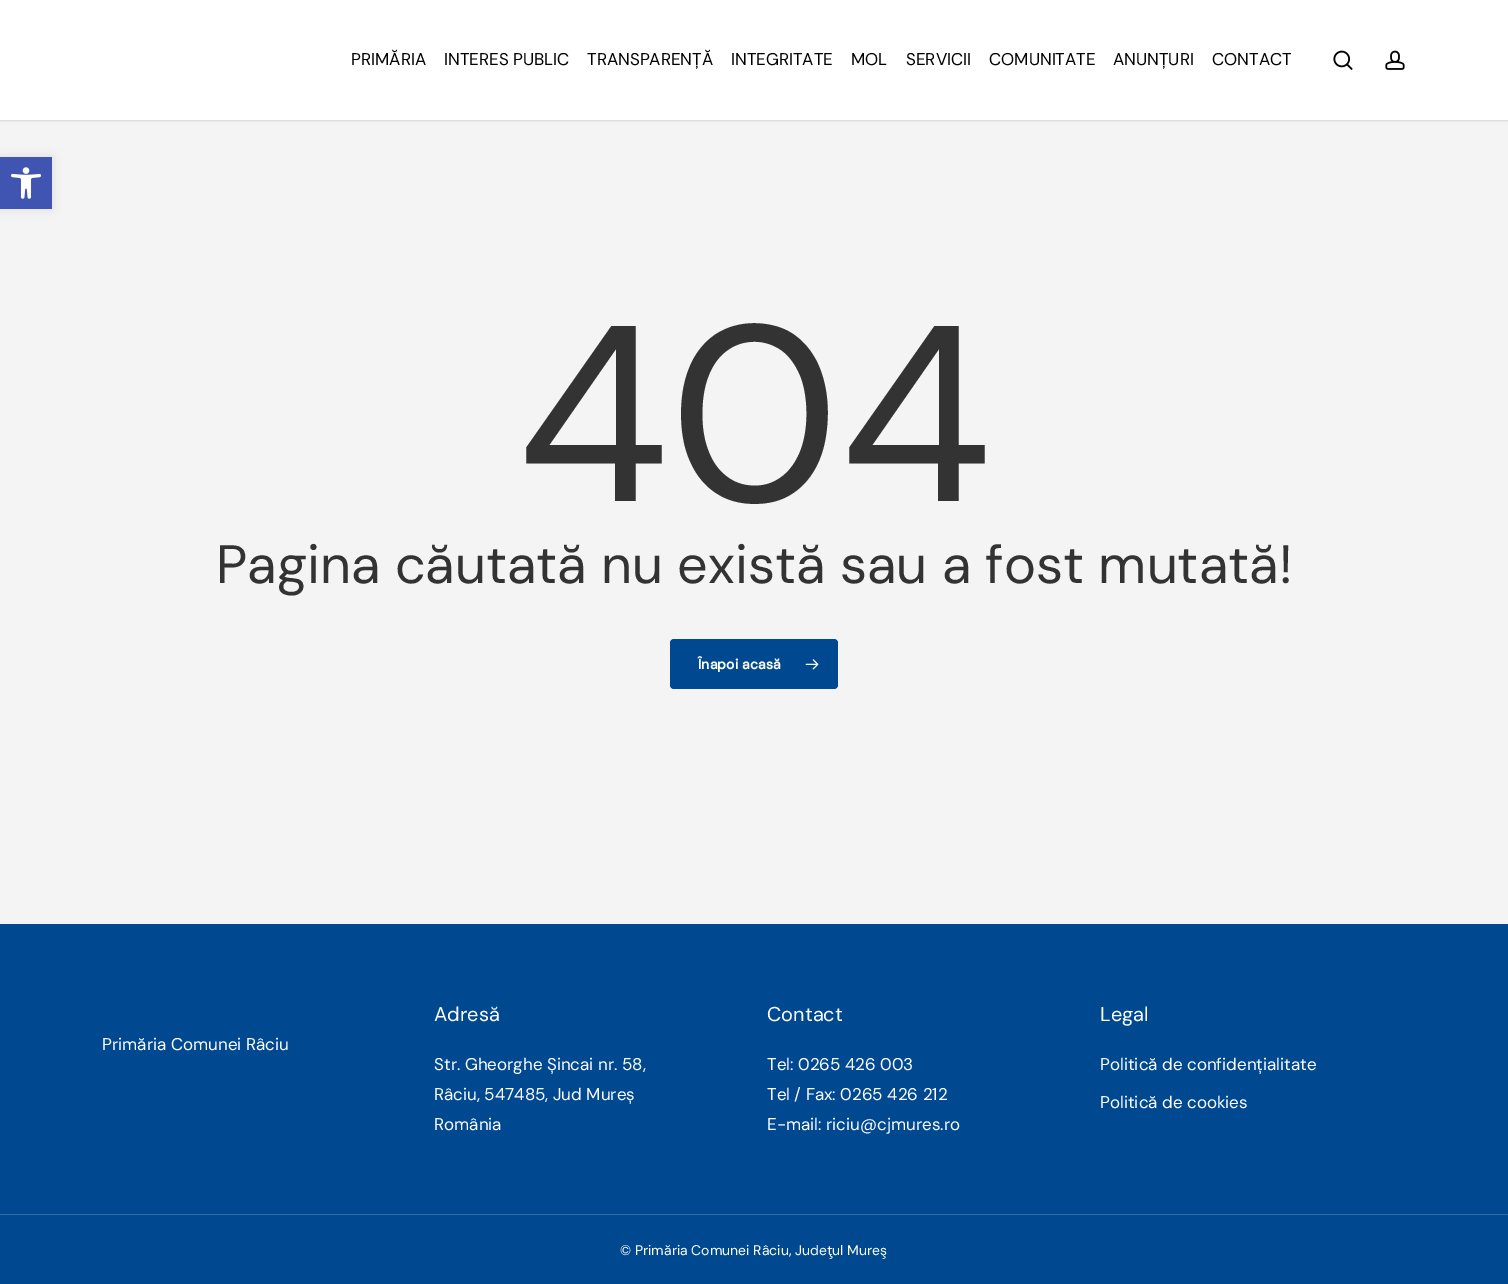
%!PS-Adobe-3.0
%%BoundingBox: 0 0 1508 1284
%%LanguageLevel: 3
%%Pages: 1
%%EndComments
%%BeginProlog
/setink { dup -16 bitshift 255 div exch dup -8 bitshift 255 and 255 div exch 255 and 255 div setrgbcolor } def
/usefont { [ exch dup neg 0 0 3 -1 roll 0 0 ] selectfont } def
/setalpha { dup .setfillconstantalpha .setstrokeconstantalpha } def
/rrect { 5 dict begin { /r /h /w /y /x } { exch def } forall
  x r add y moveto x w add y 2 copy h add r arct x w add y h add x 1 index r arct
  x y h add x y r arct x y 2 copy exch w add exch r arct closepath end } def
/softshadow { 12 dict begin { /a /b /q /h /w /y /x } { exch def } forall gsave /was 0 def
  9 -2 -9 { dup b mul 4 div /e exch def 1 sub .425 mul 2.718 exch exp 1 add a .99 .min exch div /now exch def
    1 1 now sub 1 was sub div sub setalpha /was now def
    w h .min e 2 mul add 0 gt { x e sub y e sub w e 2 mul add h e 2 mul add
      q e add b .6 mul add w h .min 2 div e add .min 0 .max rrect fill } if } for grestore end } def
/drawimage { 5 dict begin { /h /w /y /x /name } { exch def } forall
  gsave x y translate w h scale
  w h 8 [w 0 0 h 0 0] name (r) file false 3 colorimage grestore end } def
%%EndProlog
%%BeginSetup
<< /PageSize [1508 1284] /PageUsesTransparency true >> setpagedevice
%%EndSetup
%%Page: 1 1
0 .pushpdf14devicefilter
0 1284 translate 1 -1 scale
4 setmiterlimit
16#FFFFFF setink
0 0 1508 1284 rectfill
16#F4F4F4 setink
0 120 1508 804 rectfill
16#000000 setink
0 157 52 52 0 5 0.1 softshadow
16#4054B2 setink
0 157 52 52 rectfill
(img1.raw) 11 167 30 32 drawimage
gsave
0 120 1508 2 rectclip
16#000000 setink
0 0 1508 120 0 1.5 0.22 softshadow
grestore
/DMSans-Regular 17 usefont
16#000000 setink
[
    [(PRIMĂRIA) 351 65]
    [(INTERES PUBLIC) 444 65]
    [(TRANSPARENȚĂ) 587 65]
    [(INTEGRITATE) 731 65]
    [(MOL) 851 65]
    [(SERVICII) 906 65]
    [(COMUNITATE) 989 65]
    [(ANUNȚURI) 1113 65]
    [(CONTACT) 1212 65]
] { aload pop moveto show } forall
(img2.raw) 1333 50 20 20 drawimage
(img3.raw) 1385 50 20 20 drawimage
/DMSans-Regular 250 usefont
16#333333 setink
517 501 moveto (404) show
/DMSans-Regular 54 usefont
216 583 moveto (Pagina căutată nu există sau a fost mutată!) show
16#004990 setink
670 639 168 50 4 rrect fill
/DMSans-Bold 14 usefont
16#FFFFFF setink
698 669 moveto (Înapoi acasă) show
(img4.raw) 805 659 14 11 drawimage
16#004990 setink
0 924 1508 360 rectfill
/DMSans-Regular 17 usefont
16#FFFFFF setink
102 1050 moveto (Primăria Comunei Râciu) show
/DMSans-Regular 20 usefont
434 1021 moveto (Adresă) show
/DMSans-Regular 17 usefont
[
    [(Str. Gheorghe Șincai nr. 58,) 434 1070]
    [(Râciu, 547485, Jud Mureș) 434 1100]
    [(România) 434 1130]
] { aload pop moveto show } forall
/DMSans-Regular 20 usefont
767 1021 moveto (Contact) show
/DMSans-Regular 17 usefont
[
    [(Tel: 0265 426 003) 767 1070]
    [(Tel / Fax: 0265 426 212) 767 1100]
    [(E-mail: riciu@cjmures.ro) 767 1130]
] { aload pop moveto show } forall
/DMSans-Regular 20 usefont
1100 1021 moveto (Legal) show
/DMSans-Regular 17 usefont
1100 1070 moveto (Politică de confidențialitate) show
1100 1108 moveto (Politică de cookies) show
16#2E6AA4 setink
0 1214 1508 1 rectfill
/DMSans-Regular 14 usefont
16#FFFFFF setink
620 1255 moveto (© Primăria Comunei Râciu, Judeţul Mureş) show
.poppdf14devicefilter showpage
%%EOF
